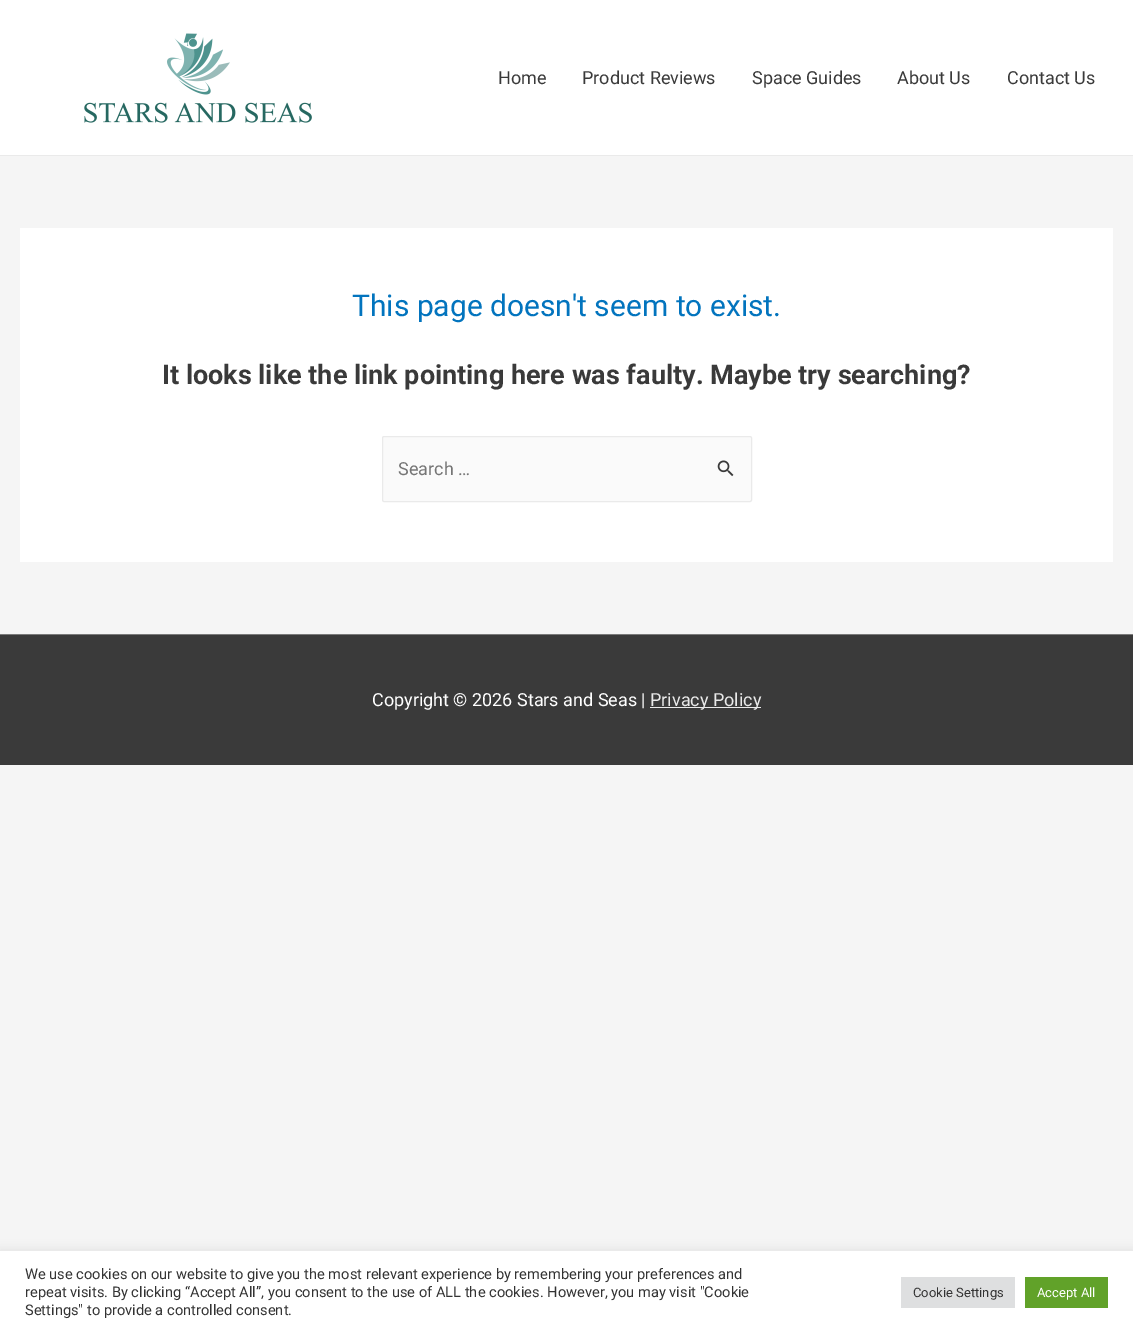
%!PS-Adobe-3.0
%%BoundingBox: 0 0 1133 1333
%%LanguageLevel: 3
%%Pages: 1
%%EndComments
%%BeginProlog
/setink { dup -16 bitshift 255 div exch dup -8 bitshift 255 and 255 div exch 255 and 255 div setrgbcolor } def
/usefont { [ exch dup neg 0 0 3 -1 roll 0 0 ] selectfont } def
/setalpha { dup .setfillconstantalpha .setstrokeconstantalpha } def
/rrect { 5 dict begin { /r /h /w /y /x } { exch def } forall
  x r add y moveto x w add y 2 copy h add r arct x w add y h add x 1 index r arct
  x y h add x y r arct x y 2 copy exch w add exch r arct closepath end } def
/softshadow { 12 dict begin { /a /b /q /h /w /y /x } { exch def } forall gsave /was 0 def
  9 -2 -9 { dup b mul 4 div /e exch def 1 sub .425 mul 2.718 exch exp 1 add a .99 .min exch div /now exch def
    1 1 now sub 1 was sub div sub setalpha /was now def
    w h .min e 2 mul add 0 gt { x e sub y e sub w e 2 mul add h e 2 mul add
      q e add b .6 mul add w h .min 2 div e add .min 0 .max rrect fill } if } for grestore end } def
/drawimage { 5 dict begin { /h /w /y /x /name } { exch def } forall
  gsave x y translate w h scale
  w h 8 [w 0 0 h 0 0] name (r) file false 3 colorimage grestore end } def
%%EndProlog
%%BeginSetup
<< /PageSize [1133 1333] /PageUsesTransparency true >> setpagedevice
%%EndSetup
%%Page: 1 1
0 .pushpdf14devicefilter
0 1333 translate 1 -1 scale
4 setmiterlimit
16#F5F5F5 setink
0 0 1133 1333 rectfill
16#FFFFFF setink
0 0 1133 155 rectfill
16#EAEAEA setink
0 155 1133 1 rectfill
(img1.raw) 84 33 228 90 drawimage
/Roboto-Regular 18 usefont
16#3A3A3A setink
[
    [(Home) 498 84]
    [(Product Reviews) 582 84]
    [(Space Guides) 752 84]
    [(About Us) 897 84]
    [(Contact Us) 1007 84]
] { aload pop moveto show } forall
16#FFFFFF setink
20 228 1093 334 rectfill
/Roboto-Regular 30 usefont
16#0274BE setink
352 316 moveto (This page doesn't seem to exist.) show
/Roboto-Bold 27 usefont
16#3A3A3A setink
162 384 moveto (It looks like the link pointing here was faulty. Maybe try searching?) show
16#FAFAFA setink
382.5 436.5 369 65 1.5 rrect gsave fill grestore
16#EAEAEA setink
stroke
/Roboto-Regular 18 usefont
16#757575 setink
398 475 moveto (Search …) show
(img2.raw) 717 460 17 17 drawimage
16#7A7A7A setink
0 634 1133 1 rectfill
16#3A3A3A setink
0 635 1133 130 rectfill
16#FFFFFF setink
372 706 moveto (Copyright © 2026 Stars and Seas |) show
16#EAEAEA setink
650 707 111 1 rectfill
650 706 moveto (Privacy Policy) show
16#ACABAB setink
0 1250 1133 82 0 5 0.3 softshadow
16#FFFFFF setink
0 1251 1133 82 rectfill
/Roboto-Regular 14.65 usefont
16#333333 setink
[
    [(We use cookies on our website to give you the most relevant experience by remembering your preferences and) 25 1279]
    [(repeat visits. By clicking “Accept All”, you consent to the use of ALL the cookies. However, you may visit "Cookie) 25 1297]
    [(Settings" to provide a controlled consent.) 25 1315]
] { aload pop moveto show } forall
16#DEDFE0 setink
901 1277 114 31 rectfill
/Roboto-Regular 13 usefont
16#333333 setink
913 1297 moveto (Cookie Settings) show
16#61A229 setink
1025 1277 83 31 rectfill
16#FFFFFF setink
1037 1297 moveto (Accept All) show
.poppdf14devicefilter showpage
%%EOF
